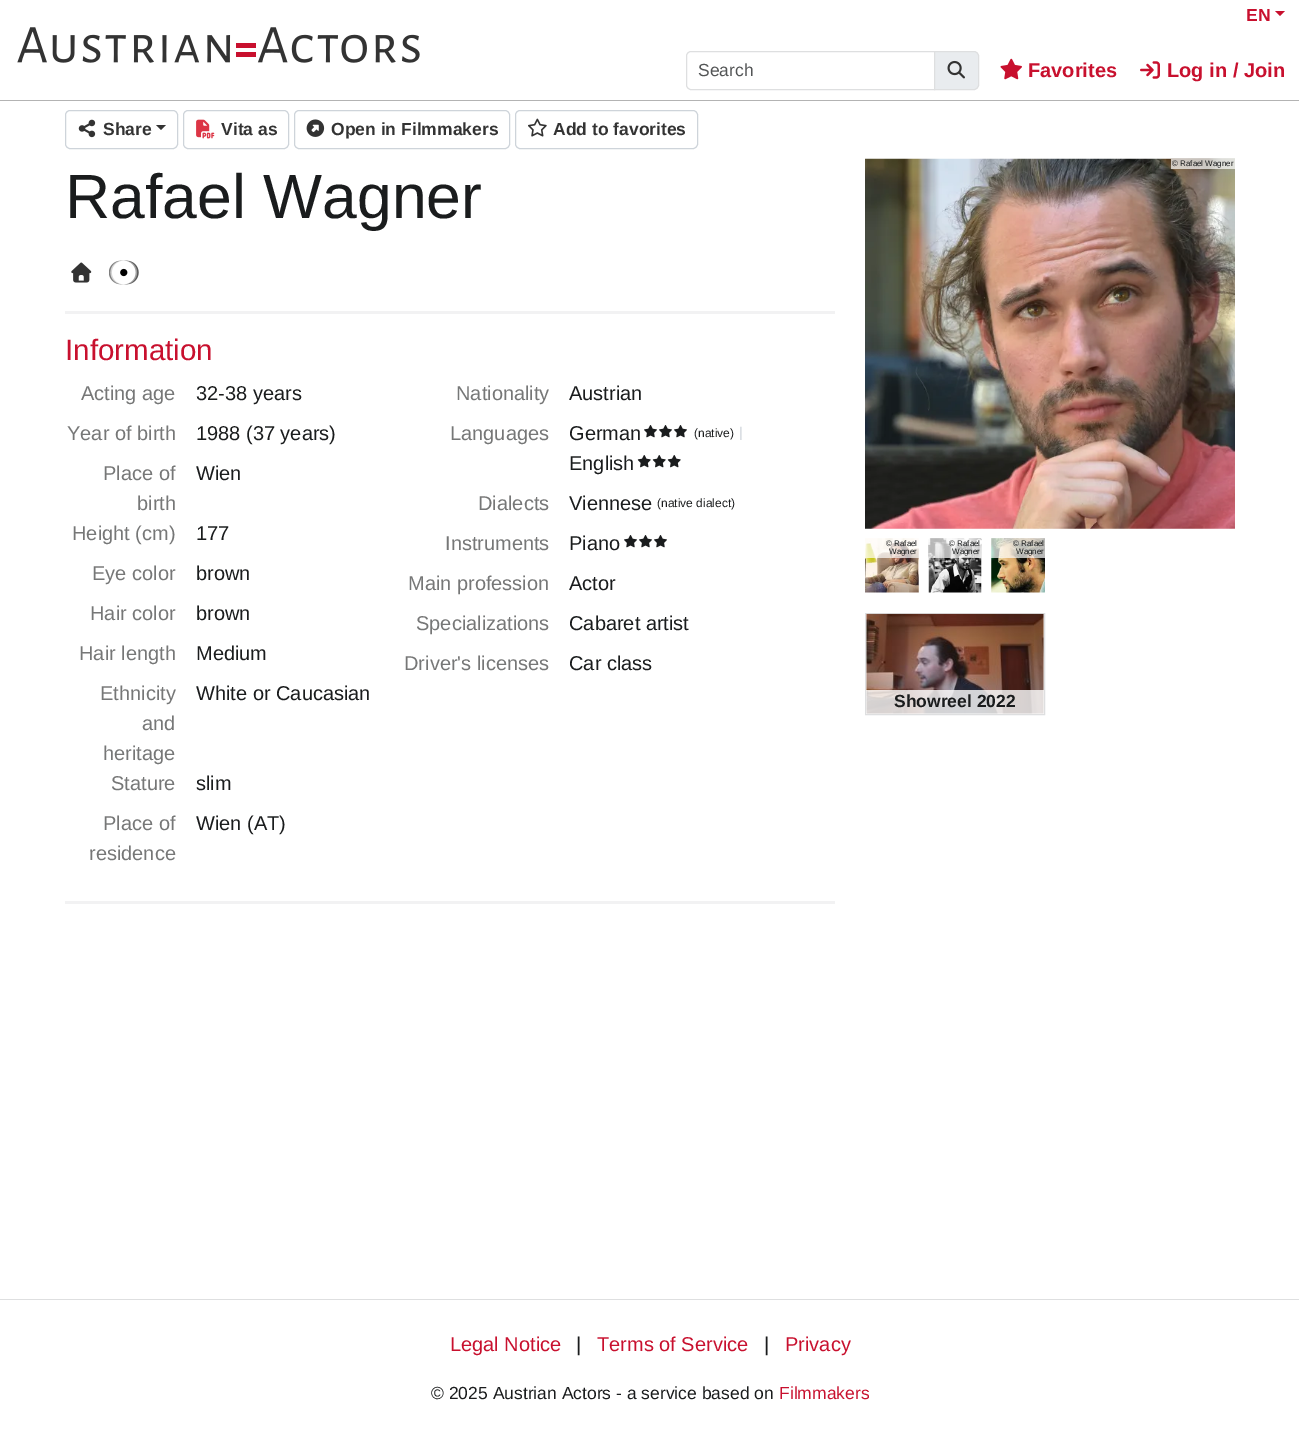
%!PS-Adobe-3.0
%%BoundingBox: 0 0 1299 1436
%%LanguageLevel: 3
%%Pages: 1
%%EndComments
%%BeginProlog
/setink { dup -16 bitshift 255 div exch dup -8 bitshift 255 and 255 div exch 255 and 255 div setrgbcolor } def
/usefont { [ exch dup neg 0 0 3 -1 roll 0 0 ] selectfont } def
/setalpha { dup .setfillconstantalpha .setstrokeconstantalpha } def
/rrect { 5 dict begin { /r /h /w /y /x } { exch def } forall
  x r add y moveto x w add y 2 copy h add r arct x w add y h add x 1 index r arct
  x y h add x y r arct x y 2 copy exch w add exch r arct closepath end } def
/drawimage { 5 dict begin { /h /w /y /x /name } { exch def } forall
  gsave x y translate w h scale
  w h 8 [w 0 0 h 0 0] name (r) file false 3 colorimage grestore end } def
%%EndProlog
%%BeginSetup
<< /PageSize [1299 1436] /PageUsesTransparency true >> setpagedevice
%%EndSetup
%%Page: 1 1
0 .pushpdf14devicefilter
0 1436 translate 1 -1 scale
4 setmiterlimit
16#FFFFFF setink
0 0 1299 1436 rectfill
16#B3B3B3 setink
0 100 1299 1 rectfill
(img1.raw) 17 27 403 36 drawimage
/LiberationSans-Bold 17.5 usefont
16#C8102E setink
1246 21 moveto (EN) show
1275 11 moveto 1285 11 lineto 1280 16 lineto closepath fill
16#DEDFE0 setink
691 51.5 moveto 934.5 51.5 lineto 934.5 89.5 lineto 691 89.5 lineto 688.5 89.5 686.5 87.5 686.5 85 curveto 686.5 56 lineto 686.5 53.5 688.5 51.5 691 51.5 curveto closepath stroke
/LiberationSans-Regular 17.5 usefont
16#535556 setink
698 76 moveto (Search) show
16#E9ECEF setink
934.5 51.5 moveto 974 51.5 lineto 976.5 51.5 978.5 53.5 978.5 56 curveto 978.5 85 lineto 978.5 87.5 976.5 89.5 974 89.5 curveto 934.5 89.5 lineto closepath gsave fill grestore
16#DEDFE0 setink
stroke
(img2.raw) 947 60 18 19 drawimage
(img3.raw) 1000 58 22 22 drawimage
/LiberationSans-Bold 20 usefont
16#C8102E setink
1028 77 moveto (Favorites) show
(img4.raw) 1140 61 20 18 drawimage
1167 77 moveto (Log in / Join) show
16#CED4DA setink
65.5 110.5 112 38 4.5 rrect stroke
(img5.raw) 78 119 18 19 drawimage
/LiberationSans-Bold 17.5 usefont
16#333333 setink
103 135 moveto (Share) show
156 125 moveto 166 125 lineto 161 130 lineto closepath fill
16#CED4DA setink
183.5 110.5 105 38 4.5 rrect stroke
(img6.raw) 196 119 19 20 drawimage
16#333333 setink
221 135 moveto (Vita as) show
16#CED4DA setink
294.5 110.5 215 38 4.5 rrect stroke
(img7.raw) 306 119 19 18 drawimage
16#333333 setink
331 135 moveto (Open in Filmmakers) show
16#CED4DA setink
515.5 110.5 182 38 4.5 rrect stroke
(img8.raw) 528 118 19 19 drawimage
16#333333 setink
553 135 moveto (Add to favorites) show
/LiberationSans-Regular 62.5 usefont
16#1A1C1D setink
65 218 moveto (Rafael Wagner) show
(img9.raw) 71 262 21 21 drawimage
(img10.raw) 109 260 30 25 drawimage
16#F2F2F3 setink
65 311 770 3 rectfill
/LiberationSans-Regular 29.5 usefont
16#C8102E setink
65 360 moveto (Information) show
/LiberationSans-Regular 20 usefont
16#767777 setink
81 400 moveto (Acting age) show
16#1A1C1D setink
196 400 moveto (32-38 years) show
16#767777 setink
67 440 moveto (Year of birth) show
16#1A1C1D setink
196 440 moveto (1988 \(37 years\)) show
16#767777 setink
103 480 moveto (Place of) show
137 510 moveto (birth) show
16#1A1C1D setink
196 480 moveto (Wien) show
16#767777 setink
72 540 moveto (Height \(cm\)) show
16#1A1C1D setink
196 540 moveto (177) show
16#767777 setink
92 580 moveto (Eye color) show
16#1A1C1D setink
196 580 moveto (brown) show
16#767777 setink
90 620 moveto (Hair color) show
16#1A1C1D setink
196 620 moveto (brown) show
16#767777 setink
79 660 moveto (Hair length) show
16#1A1C1D setink
196 660 moveto (Medium) show
16#767777 setink
[
    [(Ethnicity) 100 700]
    [(and) 142 730]
    [(heritage) 103 760]
] { aload pop moveto show } forall
16#1A1C1D setink
196 700 moveto (White or Caucasian) show
16#767777 setink
111 790 moveto (Stature) show
16#1A1C1D setink
196 790 moveto (slim) show
16#767777 setink
103 830 moveto (Place of) show
89 860 moveto (residence) show
16#1A1C1D setink
196 830 moveto (Wien \(AT\)) show
16#767777 setink
456 400 moveto (Nationality) show
16#1A1C1D setink
569 400 moveto (Austrian) show
16#767777 setink
450 440 moveto (Languages) show
16#1A1C1D setink
569 440 moveto (German) show
(img11.raw) 644 425 13 13 drawimage
(img11.raw) 659 425 13 13 drawimage
(img11.raw) 674 425 13 13 drawimage
/LiberationSans-Regular 12 usefont
694 437 moveto (\(native\)) show
/LiberationSans-Regular 14 usefont
16#CED4DA setink
739 437 moveto (|) show
/LiberationSans-Regular 20 usefont
16#1A1C1D setink
569 470 moveto (English) show
(img12.raw) 637 455 14 13 drawimage
(img12.raw) 652 455 14 13 drawimage
(img12.raw) 667 455 14 13 drawimage
16#767777 setink
478 510 moveto (Dialects) show
16#1A1C1D setink
569 510 moveto (Viennese) show
/LiberationSans-Regular 12 usefont
657 507 moveto (\(native dialect\)) show
/LiberationSans-Regular 20 usefont
16#767777 setink
445 550 moveto (Instruments) show
16#1A1C1D setink
569 550 moveto (Piano) show
(img11.raw) 624 535 13 13 drawimage
(img11.raw) 639 535 13 13 drawimage
(img11.raw) 654 535 13 13 drawimage
16#767777 setink
408 590 moveto (Main profession) show
16#1A1C1D setink
569 590 moveto (Actor) show
16#767777 setink
416 630 moveto (Specializations) show
16#1A1C1D setink
569 630 moveto (Cabaret artist) show
16#767777 setink
404 670 moveto (Driver's licenses) show
16#1A1C1D setink
569 670 moveto (Car class) show
16#F2F2F3 setink
65 901 770 3 rectfill
(img13.raw) 865 158 370 371 drawimage
0.7 setalpha
16#FFFFFF setink
1171 159 64 10 rectfill
/LiberationSans-Regular 8 usefont
1 setalpha
16#1A1C1D setink
1172 166 moveto (© Rafael Wagner) show
(img14.raw) 865 538 54 55 drawimage
0.7 setalpha
16#FFFFFF setink
865 539 54 19 rectfill
1 setalpha
16#1A1C1D setink
886 546 moveto (© Rafael) show
889 554 moveto (Wagner) show
(img15.raw) 928 538 54 55 drawimage
0.7 setalpha
16#FFFFFF setink
929 539 52 19 rectfill
1 setalpha
16#1A1C1D setink
949 546 moveto (© Rafael) show
952 554 moveto (Wagner) show
(img16.raw) 991 538 54 55 drawimage
0.7 setalpha
16#FFFFFF setink
991 539 54 19 rectfill
1 setalpha
16#1A1C1D setink
1013 546 moveto (© Rafael) show
1016 554 moveto (Wagner) show
16#DEDFE0 setink
865.5 613.5 179 101 rectstroke
(img17.raw) 866 613 178 101 drawimage
0.8 setalpha
16#FFFFFF setink
866 690 178 24 rectfill
/LiberationSans-Bold 17.5 usefont
1 setalpha
16#1A1C1D setink
894 707 moveto (Showreel 2022) show
16#DEDFE0 setink
0 1299 1299 1 rectfill
/LiberationSans-Regular 20 usefont
16#C8102E setink
450 1351 moveto (Legal Notice) show
16#1A1C1D setink
576 1351 moveto (|) show
16#C8102E setink
597 1351 moveto (Terms of Service) show
16#1A1C1D setink
764 1351 moveto (|) show
16#C8102E setink
785 1351 moveto (Privacy) show
/LiberationSans-Regular 17.5 usefont
16#1A1C1D setink
431 1399 moveto (© 2025 Austrian Actors - a service based on) show
16#C8102E setink
779 1399 moveto (Filmmakers) show
.poppdf14devicefilter showpage
%%EOF
